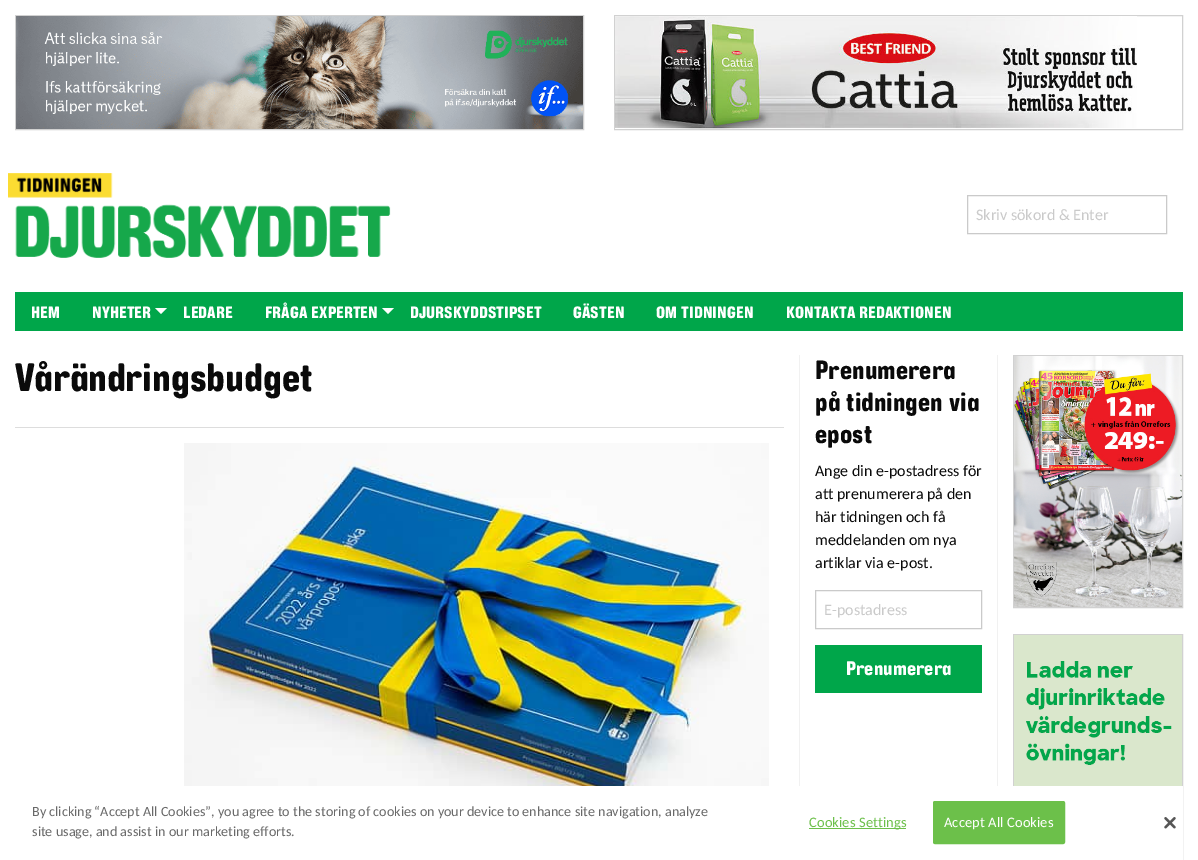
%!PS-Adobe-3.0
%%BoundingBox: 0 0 1198 860
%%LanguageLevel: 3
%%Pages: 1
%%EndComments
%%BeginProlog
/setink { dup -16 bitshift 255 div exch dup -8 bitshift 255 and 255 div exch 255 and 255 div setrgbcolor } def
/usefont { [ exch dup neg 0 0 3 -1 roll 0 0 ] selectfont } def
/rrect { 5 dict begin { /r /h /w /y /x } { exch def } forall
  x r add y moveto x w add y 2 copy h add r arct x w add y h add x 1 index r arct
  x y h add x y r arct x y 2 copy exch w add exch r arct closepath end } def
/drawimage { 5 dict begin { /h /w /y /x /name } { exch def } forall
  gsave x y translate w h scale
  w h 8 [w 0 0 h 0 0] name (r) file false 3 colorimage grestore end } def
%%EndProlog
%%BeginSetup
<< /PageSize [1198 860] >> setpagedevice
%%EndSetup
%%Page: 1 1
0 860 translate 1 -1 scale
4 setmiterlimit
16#FFFFFF setink
0 0 1198 860 rectfill
16#D1D1D1 setink
15.5 15.5 568 114 rectstroke
(img1.raw) 16 16 567 113 drawimage
614.5 15.5 568 114 rectstroke
(img2.raw) 615 16 522 113 drawimage
(img3.raw) 8 173 383 85 drawimage
16#CACACA setink
967.5 195.5 199 38 rectstroke
/Carlito-Regular 16 usefont
976 220 moveto (Skriv sökord & Enter) show
16#00A64A setink
15 292 1168 39 rectfill
/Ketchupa-Regular 20 usefont
16#FFFFFF setink
31 318 moveto (HEM) show
92 318 moveto (NYHETER) show
155 308 moveto 167 308 lineto 161 314 lineto closepath fill
183 318 moveto (LEDARE) show
265 318 moveto (FRÅGA EXPERTEN) show
382 308 moveto 394 308 lineto 388 314 lineto closepath fill
[
    [(DJURSKYDDSTIPSET) 410 318]
    [(GÄSTEN) 573 318]
    [(OM TIDNINGEN) 656 318]
    [(KONTAKTA REDAKTIONEN) 786 318]
] { aload pop moveto show } forall
/Ketchupa-Regular 48 usefont
16#0A0A0A setink
15 391 moveto (Vårändringsbudget) show
16#DDDDDD setink
15 427 769 1 rectfill
(img4.raw) 184 443 585 343 drawimage
16#F1F1F1 setink
997 355 1 431 rectfill
799 355 1 431 rectfill
/Ketchupa-Regular 32 usefont
16#0A0A0A setink
[
    [(Prenumerera) 815 379]
    [(på tidningen via) 815 411]
    [(epost) 815 443]
] { aload pop moveto show } forall
/Carlito-Regular 16 usefont
[
    [(Ange din e-postadress för) 815 476]
    [(att prenumerera på den) 815 499]
    [(här tidningen och få) 815 522]
    [(meddelanden om nya) 815 545]
    [(artiklar via e-post.) 815 568]
] { aload pop moveto show } forall
16#CACACA setink
815.5 590.5 166 38 rectstroke
824 615 moveto (E-postadress) show
16#00A64A setink
815 645 167 48 rectfill
/Ketchupa-Regular 24 usefont
16#FFFFFF setink
846 675 moveto (Prenumerera) show
16#D1D1D1 setink
1013.5 355.5 169 252 rectstroke
(img5.raw) 1014 356 168 251 drawimage
1013.5 634.5 169 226 rectstroke
(img6.raw) 1014 635 168 151 drawimage
16#FFFFFF setink
1013 786 170 74 rectfill
/Carlito-Regular 14.1 usefont
16#696969 setink
32 816 moveto (By clicking “Accept All Cookies”, you agree to the storing of cookies on your device to enhance site navigation, analyze) show
32 836 moveto (site usage, and assist in our marketing efforts.) show
16#6CC04A setink
809 828 97 1 rectfill
/Carlito-Regular 14.5 usefont
809 827 moveto 0.1 0 (Cookies Settings) ashow
933.5 801.5 131 42 1.5 rrect gsave fill grestore
stroke
16#FFFFFF setink
944 827 moveto 0.1 0 (Accept All Cookies) ashow
(img7.raw) 1164 817 12 12 drawimage
showpage
%%EOF
